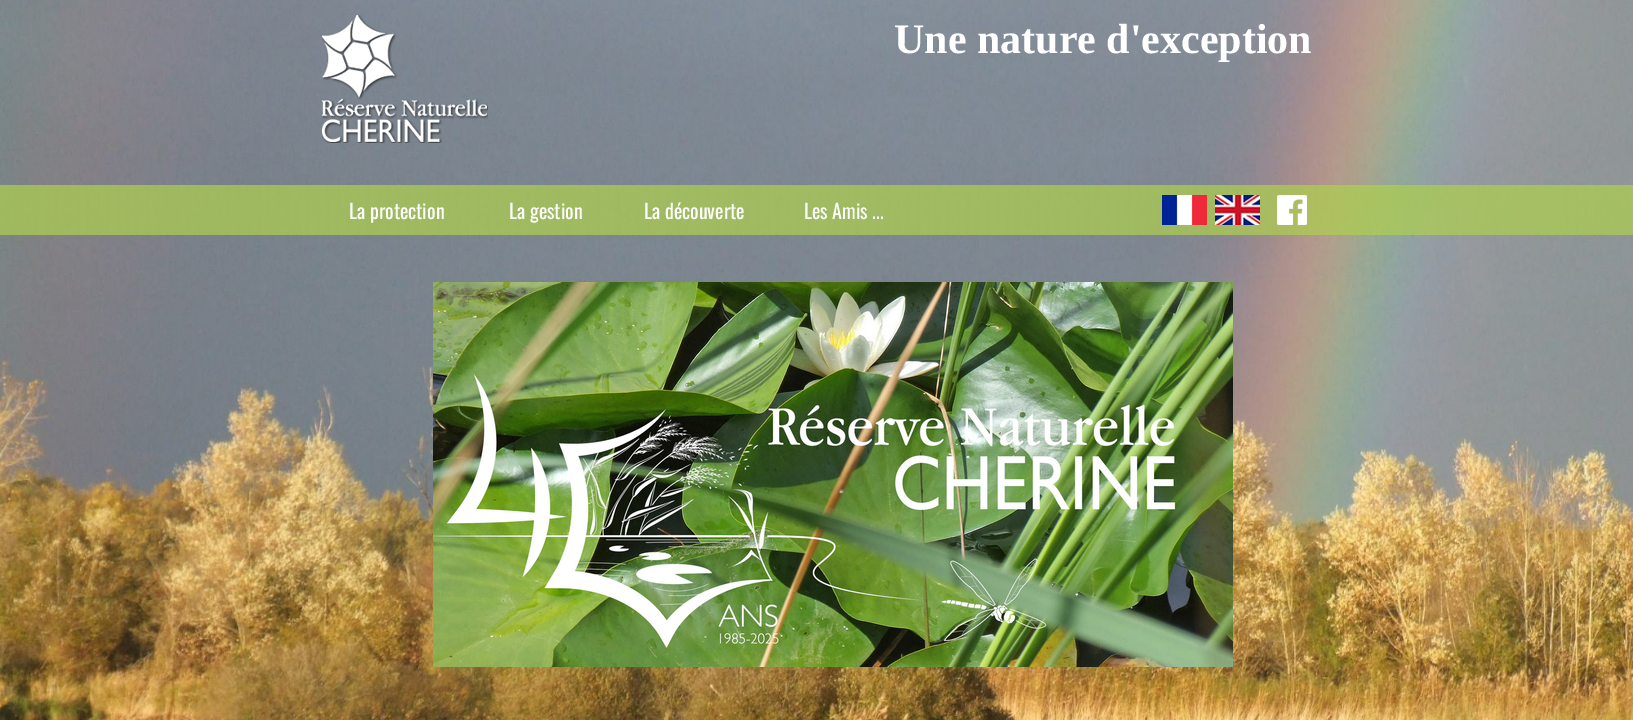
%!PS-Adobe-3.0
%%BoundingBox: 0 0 1633 720
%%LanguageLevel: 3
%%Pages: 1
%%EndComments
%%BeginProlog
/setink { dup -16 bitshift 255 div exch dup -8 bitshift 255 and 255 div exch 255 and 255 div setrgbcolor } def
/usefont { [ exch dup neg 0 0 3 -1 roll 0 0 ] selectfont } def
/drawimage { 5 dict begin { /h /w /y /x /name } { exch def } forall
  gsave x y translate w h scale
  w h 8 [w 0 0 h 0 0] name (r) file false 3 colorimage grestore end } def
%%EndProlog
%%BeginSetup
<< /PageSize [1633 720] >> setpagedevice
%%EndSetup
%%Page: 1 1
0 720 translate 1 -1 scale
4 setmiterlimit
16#FFFFFF setink
0 0 1633 720 rectfill
(img1.raw) 0 0 1633 720 drawimage
(img2.raw) 322 15 166 128 drawimage
/LiberationSerif-Bold 42 usefont
894 53 moveto (Une nature d'exception) show
(img3.raw) 0 185 1633 50 drawimage
/Oswald-Regular 20 usefont
[
    [(La protection) 349 219]
    [(La gestion) 509 219]
    [(La découverte) 644 219]
    [(Les Amis ...) 804 219]
] { aload pop moveto show } forall
(img4.raw) 1162 195 45 30 drawimage
(img5.raw) 1215 195 45 30 drawimage
(img6.raw) 1277 195 30 30 drawimage
(img7.raw) 433 282 800 385 drawimage
showpage
%%EOF
